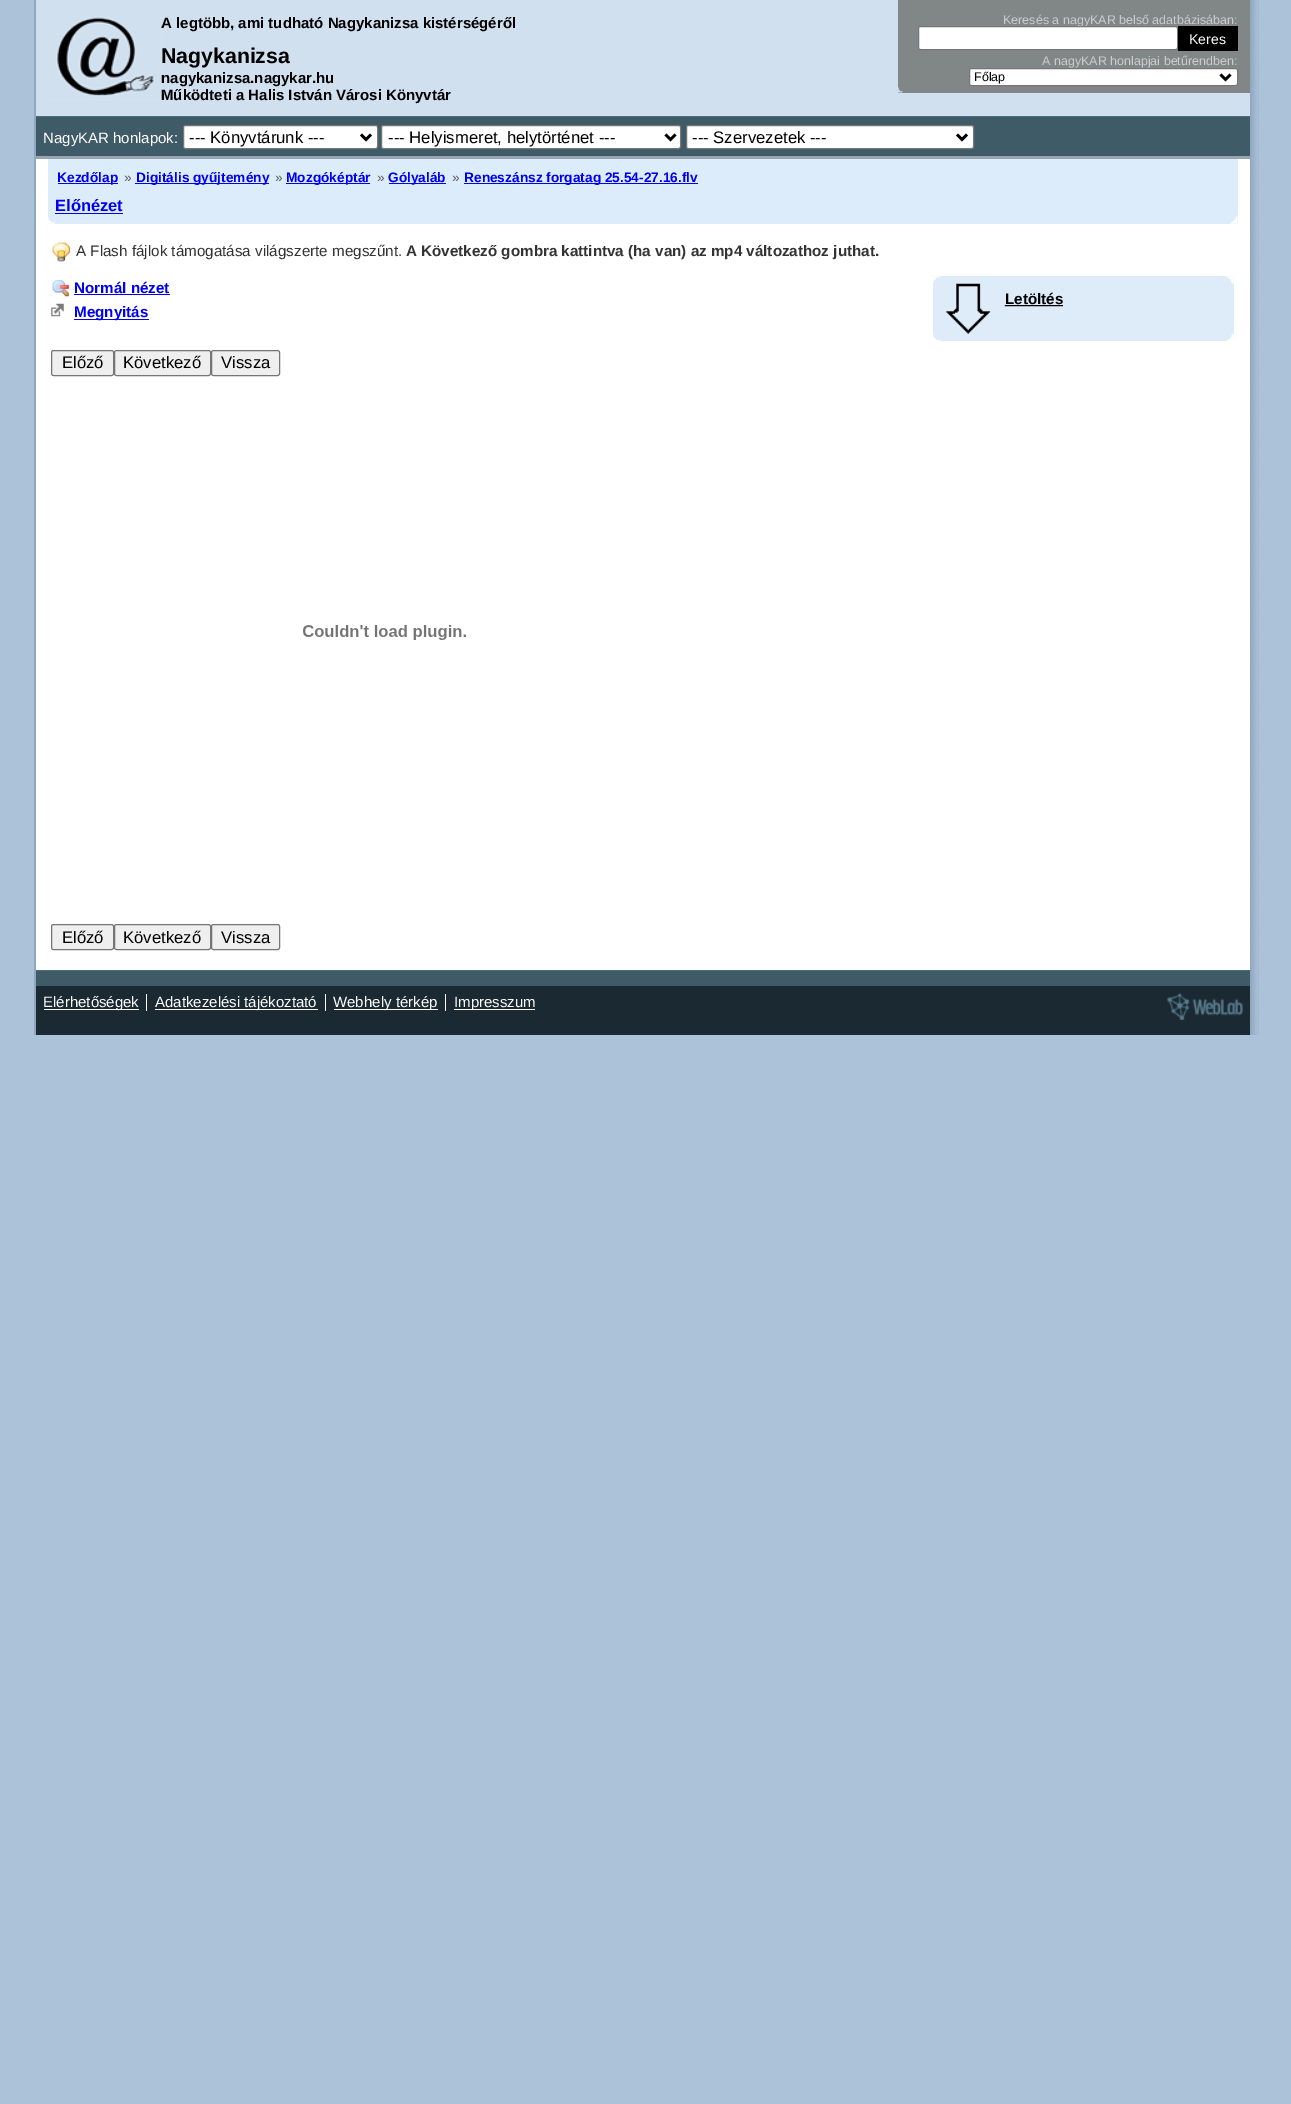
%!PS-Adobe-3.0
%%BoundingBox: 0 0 1291 2104
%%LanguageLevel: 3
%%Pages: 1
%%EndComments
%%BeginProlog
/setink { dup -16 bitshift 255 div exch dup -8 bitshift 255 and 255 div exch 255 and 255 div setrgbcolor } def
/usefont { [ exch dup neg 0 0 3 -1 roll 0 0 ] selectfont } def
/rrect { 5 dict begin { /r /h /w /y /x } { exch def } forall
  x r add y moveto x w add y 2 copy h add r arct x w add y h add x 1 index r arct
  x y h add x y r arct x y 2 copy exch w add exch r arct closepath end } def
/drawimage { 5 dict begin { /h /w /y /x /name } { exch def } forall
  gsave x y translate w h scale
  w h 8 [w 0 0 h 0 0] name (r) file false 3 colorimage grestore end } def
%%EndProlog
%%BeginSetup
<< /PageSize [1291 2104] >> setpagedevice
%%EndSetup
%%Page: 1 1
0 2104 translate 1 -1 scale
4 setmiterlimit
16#ACC2D9 setink
0 0 1291 2104 rectfill
16#8FA7BF setink
34 0 1225 1035 rectfill
(img1.raw) 1251 0 8 1035 drawimage
[
    [36 159 1214 811 16#FFFFFF]
    [36 0 1214 116 16#D1E0EF]
    [36 156 1214 3 16#99A4AF]
] { aload pop setink rectfill } forall
/LiberationSans-Bold 15 usefont
16#000000 setink
[
    [(A legtöbb, ami tudható Nagykanizsa kistérségéről) 161 28]
    [(nagykanizsa.nagykar.hu) 161 83]
    [(Működteti a Halis István Városi Könyvtár) 161 100]
] { aload pop moveto show } forall
(img2.raw) 49 13 113 87 drawimage
/LiberationSans-Bold 21.25 usefont
161 63 moveto (Nagykanizsa) show
16#818787 setink
898 0 352 93 rectfill
(img3.raw) 898 87 5 6 drawimage
/LiberationSans-Regular 12.5 usefont
16#CCCCCC setink
1003 24 moveto (Keresés a nagyKAR belső adatbázisában:) show
16#FFFFFF setink
918.5 26.5 259 23 2 rrect gsave fill grestore
16#767676 setink
stroke
16#000000 setink
1178 26 60 25 rectfill
/LiberationSans-Regular 14 usefont
16#FFFFFF setink
1189 44 moveto (Keres) show
/LiberationSans-Regular 12.5 usefont
16#CCCCCC setink
1042 65 moveto (A nagyKAR honlapjai betűrendben:) show
16#FFFFFF setink
969.5 68.5 268 17 2 rrect gsave fill grestore
16#767676 setink
stroke
16#000000 setink
2.5 setlinewidth
1220.5 74.5 moveto 1225.5 79.5 lineto 1230.5 74.5 lineto stroke
974 81 moveto (Főlap) show
16#3F5B68 setink
36 117 1214 39 rectfill
16#476E7F setink
36 116 1214 1 rectfill
/LiberationSans-Regular 15 usefont
16#FFFFFF setink
43 143 moveto (NagyKAR honlapok:) show
183.5 125.5 194 23 2 rrect gsave fill grestore
16#767676 setink
1 setlinewidth
stroke
16#000000 setink
2.5 setlinewidth
361 134.5 moveto 366 139.5 lineto 371 134.5 lineto stroke
/LiberationSans-Regular 16.7 usefont
189 143 moveto (--- Könyvtárunk ---) show
16#FFFFFF setink
381.5 125.5 299 23 2 rrect gsave fill grestore
16#767676 setink
1 setlinewidth
stroke
16#000000 setink
2.5 setlinewidth
665.5 134.5 moveto 670.5 139.5 lineto 675.5 134.5 lineto stroke
388 143 moveto (--- Helyismeret, helytörténet ---) show
16#FFFFFF setink
686.5 125.5 287 23 2 rrect gsave fill grestore
16#767676 setink
1 setlinewidth
stroke
16#000000 setink
2.5 setlinewidth
957 134.5 moveto 962 139.5 lineto 967 134.5 lineto stroke
692 143 moveto (--- Szervezetek ---) show
16#DCECFB setink
48 159 1190 65 rectfill
(img4.raw) 48 217 7 7 drawimage
(img5.raw) 1230 216 8 8 drawimage
16#0000EE setink
58 183 60 1 rectfill
/LiberationSans-Bold 13.7 usefont
57 182 moveto (Kezdőlap) show
/LiberationSans-Regular 13.7 usefont
16#595C5F setink
124 182 moveto (») show
16#0000EE setink
135 183 134 1 rectfill
/LiberationSans-Bold 13.7 usefont
136 182 moveto (Digitális gyűjtemény) show
/LiberationSans-Regular 13.7 usefont
16#595C5F setink
275 182 moveto (») show
16#0000EE setink
286 183 84 1 rectfill
/LiberationSans-Bold 13.7 usefont
286 182 moveto (Mozgóképtár) show
/LiberationSans-Regular 13.7 usefont
16#595C5F setink
377 182 moveto (») show
16#0000EE setink
389 183 57 1 rectfill
/LiberationSans-Bold 13.7 usefont
388 182 moveto (Gólyaláb) show
/LiberationSans-Regular 13.7 usefont
16#595C5F setink
452 182 moveto (») show
16#0000EE setink
464 183 234 1 rectfill
/LiberationSans-Bold 13.7 usefont
464 182 moveto (Reneszánsz forgatag 25.54-27.16.flv) show
/LiberationSans-Bold 16.5 usefont
55 211 moveto (Előnézet) show
55 213 68 1 rectfill
(img6.raw) 52 242 19 20 drawimage
/LiberationSans-Regular 15.2 usefont
16#333333 setink
76 256 moveto (A Flash fájlok támogatása világszerte megszűnt.) show
/LiberationSans-Bold 15.2 usefont
406 256 moveto (A Következő gombra kattintva \(ha van\) az mp4 változathoz juthat.) show
(img7.raw) 52 279 17 18 drawimage
16#0000EE setink
74 293 moveto (Normál nézet) show
74 294 96 1 rectfill
16#DEECFA setink
933 276 301 65 rectfill
(img8.raw) 933 333 301 8 drawimage
(img9.raw) 933 276 301 58 drawimage
16#000000 setink
1005 304 moveto (Letöltés) show
(img10.raw) 51 303 13 14 drawimage
16#0000EE setink
74 319 75 1 rectfill
74 317 moveto (Megnyitás) show
16#EFEFEF setink
51.5 350.5 62 25 2 rrect gsave fill grestore
16#767676 setink
1 setlinewidth
stroke
/LiberationSans-Regular 16.7 usefont
16#000000 setink
62 368 moveto (Előző) show
16#EFEFEF setink
114.5 350.5 96 25 2 rrect gsave fill grestore
16#767676 setink
stroke
16#000000 setink
123 368 moveto (Következő) show
16#EFEFEF setink
211.5 350.5 68 25 2 rrect gsave fill grestore
16#767676 setink
stroke
16#000000 setink
221 368 moveto (Vissza) show
(img11.raw) 303 625 163 15 drawimage
16#EFEFEF setink
51.5 924.5 62 25 2 rrect gsave fill grestore
16#767676 setink
stroke
16#000000 setink
62 943 moveto (Előző) show
16#EFEFEF setink
114.5 924.5 96 25 2 rrect gsave fill grestore
16#767676 setink
stroke
16#000000 setink
123 943 moveto (Következő) show
16#EFEFEF setink
211.5 924.5 68 25 2 rrect gsave fill grestore
16#767676 setink
stroke
16#000000 setink
221 943 moveto (Vissza) show
[
    [36 986 1214 49 16#1B2A32]
    [36 971 1214 15 16#3F5B68]
    [36 970 1214 1 16#476E7F]
    [44 1009 95 1 16#FFFFFF]
] { aload pop setink rectfill } forall
/LiberationSans-Regular 15 usefont
43 1007 moveto (Elérhetőségek) show
16#FEFEFE setink
146 994 1 17 rectfill
16#FFFFFF setink
155 1009 163 1 rectfill
155 1007 moveto (Adatkezelési tájékoztató) show
334 1009 104 1 rectfill
333 1007 moveto (Webhely térkép) show
[
    [325 994 1 17 16#FEFEFE]
    [445 994 1 17 16#FEFEFE]
    [454 1009 81 1 16#FFFFFF]
] { aload pop setink rectfill } forall
454 1007 moveto (Impresszum) show
(img12.raw) 1167 993 76 27 drawimage
showpage
%%EOF
